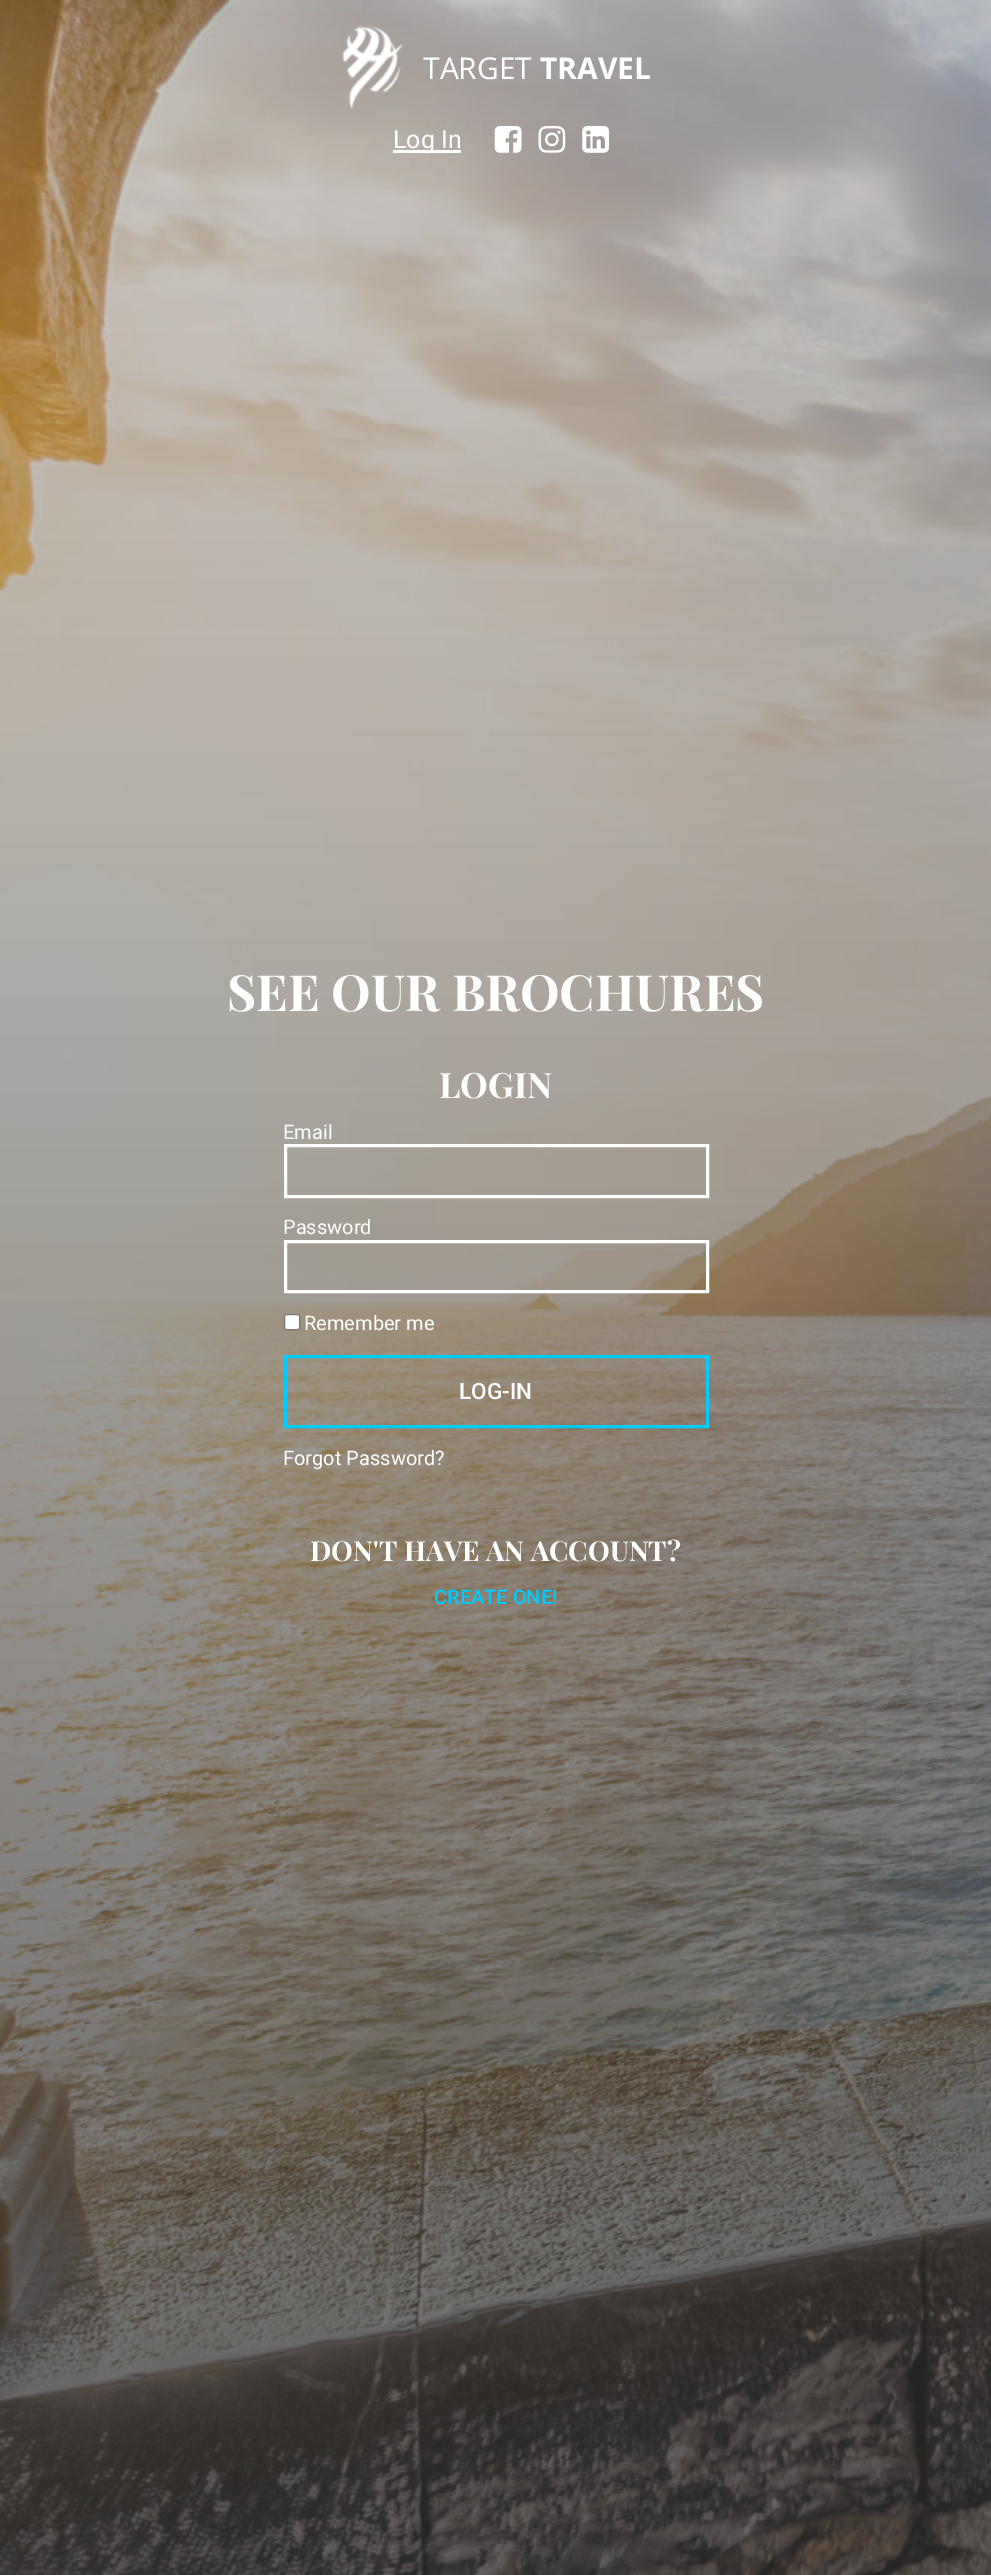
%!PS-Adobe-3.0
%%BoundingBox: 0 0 991 2575
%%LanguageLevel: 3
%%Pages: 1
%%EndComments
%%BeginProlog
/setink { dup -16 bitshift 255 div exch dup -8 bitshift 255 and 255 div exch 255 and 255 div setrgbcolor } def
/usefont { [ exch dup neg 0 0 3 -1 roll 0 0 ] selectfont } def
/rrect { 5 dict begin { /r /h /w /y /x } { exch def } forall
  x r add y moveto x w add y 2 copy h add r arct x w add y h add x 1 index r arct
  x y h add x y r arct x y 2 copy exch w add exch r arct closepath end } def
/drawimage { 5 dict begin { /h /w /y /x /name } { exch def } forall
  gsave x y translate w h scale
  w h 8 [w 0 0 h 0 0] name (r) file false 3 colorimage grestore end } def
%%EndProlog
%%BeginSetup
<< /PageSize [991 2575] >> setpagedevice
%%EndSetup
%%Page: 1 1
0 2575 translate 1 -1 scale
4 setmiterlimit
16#FFFFFF setink
0 0 991 2575 rectfill
(img5.raw) 0 0 991 2575 drawimage
(img1.raw) 342 25 62 84 drawimage
/OpenSans-Regular 30 usefont
423 79 moveto (TARGET) show
/OpenSans-Bold 30 usefont
540 79 moveto (TRAVEL) show
393 150 68 3 rectfill
/Roboto-Regular 25 usefont
393 148 moveto (Log In) show
(img2.raw) 494 126 28 27 drawimage
(img3.raw) 538 126 28 27 drawimage
(img4.raw) 582 126 27 27 drawimage
/PlayfairDisplay-Bold 50 usefont
227 1011 moveto (SEE OUR BROCHURES) show
/PlayfairDisplay-Bold 35 usefont
439 1098 moveto (LOGIN) show
/Roboto-Regular 20 usefont
283 1139 moveto (Email) show
3 setlinewidth
285.5 1145.5 422 51 rectstroke
283 1234 moveto (Password) show
285.5 1241.5 422 50 rectstroke
284.5 1314.5 15 15 2 rrect gsave fill grestore
16#767676 setink
1 setlinewidth
stroke
16#FFFFFF setink
304 1330 moveto (Remember me) show
16#00CCFF setink
3 setlinewidth
285.5 1356.5 422 70 rectstroke
/Roboto-Medium 22.5 usefont
16#FFFFFF setink
459 1399 moveto (LOG-IN) show
/Roboto-Regular 20 usefont
283 1465 moveto (Forgot Password?) show
/PlayfairDisplay-Bold 27.5 usefont
310 1561 moveto (DON'T HAVE AN ACCOUNT?) show
/Roboto-Medium 20 usefont
16#00CCFF setink
434 1604 moveto (CREATE ONE!) show
showpage
%%EOF
